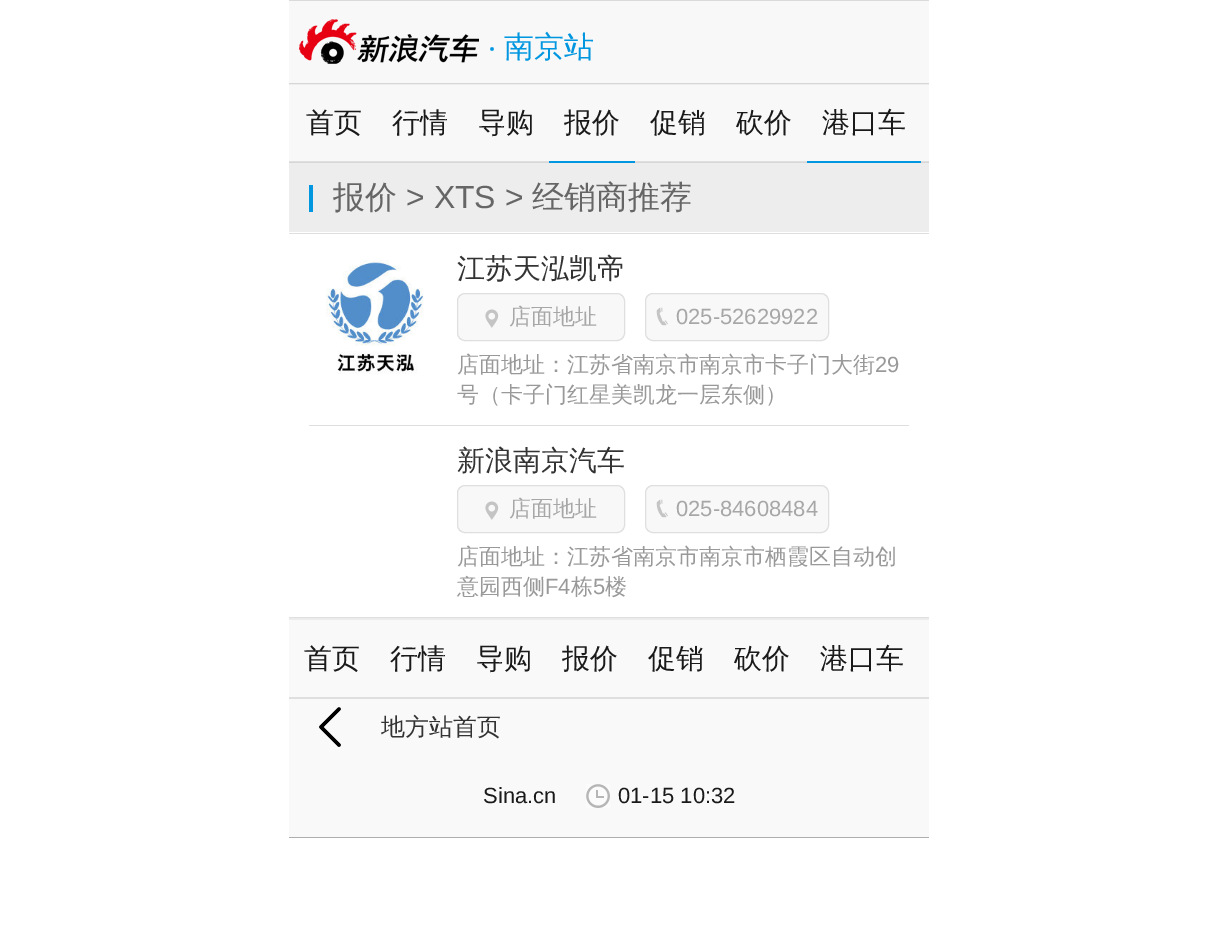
%!PS-Adobe-3.0
%%BoundingBox: 0 0 1218 934
%%LanguageLevel: 3
%%Pages: 1
%%EndComments
%%BeginProlog
/setink { dup -16 bitshift 255 div exch dup -8 bitshift 255 and 255 div exch 255 and 255 div setrgbcolor } def
/usefont { [ exch dup neg 0 0 3 -1 roll 0 0 ] selectfont } def
/rrect { 5 dict begin { /r /h /w /y /x } { exch def } forall
  x r add y moveto x w add y 2 copy h add r arct x w add y h add x 1 index r arct
  x y h add x y r arct x y 2 copy exch w add exch r arct closepath end } def
/drawimage { 5 dict begin { /h /w /y /x /name } { exch def } forall
  gsave x y translate w h scale
  w h 8 [w 0 0 h 0 0] name (r) file false 3 colorimage grestore end } def
%%EndProlog
%%BeginSetup
<< /PageSize [1218 934] >> setpagedevice
%%EndSetup
%%Page: 1 1
0 934 translate 1 -1 scale
4 setmiterlimit
16#FFFFFF setink
0 0 1218 934 rectfill
[
    [289 0 640 1 16#D9DADC]
    [289 1 640 82 16#F8F8F8]
    [289 83 640 1 16#D7D7D7]
] { aload pop setink rectfill } forall
(img1.raw) 299 19 195 45 drawimage
/WenQuanYiZenHei-Medium 30 usefont
16#0097E0 setink
504 57 moveto (南京站) show
[
    [289 85 640 76 16#F8F8F8]
    [289 84 640 1 16#EDEDED]
    [289 162 640 1 16#D7D7D7]
] { aload pop setink rectfill } forall
/WenQuanYiZenHei-Medium 28 usefont
16#1A1A1A setink
[
    [(首页) 306 132]
    [(行情) 392 132]
    [(导购) 478 132]
] { aload pop moveto show } forall
16#DFDFDF setink
289 161 640 1 rectfill
16#0097E0 setink
549 161 86 2 rectfill
16#1A1A1A setink
[
    [(报价) 564 132]
    [(促销) 650 132]
    [(砍价) 736 132]
] { aload pop moveto show } forall
16#0097E0 setink
807 161 114 2 rectfill
16#1A1A1A setink
822 132 moveto (港口车) show
[
    [289 233 640 1 16#DFDFDF]
    [289 163 640 69 16#EDEDED]
    [309 185 4 27 16#0097E0]
] { aload pop setink rectfill } forall
/WenQuanYiZenHei-Medium 32 usefont
16#666666 setink
333 208 moveto (报价) show
/LiberationSans-Regular 32 usefont
406 208 moveto (> XTS >) show
/WenQuanYiZenHei-Medium 32 usefont
532 208 moveto (经销商推荐) show
16#DFDFDF setink
309 425 600 1 rectfill
(img2.raw) 326 260 98 114 drawimage
/WenQuanYiZenHei-Medium 28 usefont
16#333333 setink
457 278 moveto (江苏天泓凯帝) show
16#F8F8F8 setink
457.5 293.5 167 47 7.5 rrect gsave fill grestore
16#DFDFDF setink
stroke
(img3.raw) 485 309 14 19 drawimage
/WenQuanYiZenHei-Medium 22 usefont
16#A7A7A7 setink
509 324 moveto (店面地址) show
16#F8F8F8 setink
645.5 293.5 183 47 7.5 rrect gsave fill grestore
16#DFDFDF setink
stroke
(img4.raw) 656 307 12 19 drawimage
/LiberationSans-Regular 22 usefont
16#A7A7A7 setink
676 324 moveto (025-52629922) show
/WenQuanYiZenHei-Medium 22 usefont
16#999999 setink
457 372 moveto (店面地址：江苏省南京市南京市卡子门大街) show
/LiberationSans-Regular 22 usefont
875 372 moveto (29) show
/WenQuanYiZenHei-Medium 22 usefont
457 402 moveto (号（卡子门红星美凯龙一层东侧）) show
/WenQuanYiZenHei-Medium 28 usefont
16#333333 setink
457 470 moveto (新浪南京汽车) show
16#F8F8F8 setink
457.5 485.5 167 47 7.5 rrect gsave fill grestore
16#DFDFDF setink
stroke
(img3.raw) 485 501 14 19 drawimage
/WenQuanYiZenHei-Medium 22 usefont
16#A7A7A7 setink
509 516 moveto (店面地址) show
16#F8F8F8 setink
645.5 485.5 183 47 7.5 rrect gsave fill grestore
16#DFDFDF setink
stroke
(img4.raw) 656 499 12 19 drawimage
/LiberationSans-Regular 22 usefont
16#A7A7A7 setink
676 516 moveto (025-84608484) show
/WenQuanYiZenHei-Medium 22 usefont
16#999999 setink
457 564 moveto (店面地址：江苏省南京市南京市栖霞区自动创) show
457 594 moveto (意园西侧) show
/LiberationSans-Regular 22 usefont
545 594 moveto (F4) show
/WenQuanYiZenHei-Medium 22 usefont
571 594 moveto (栋) show
/LiberationSans-Regular 22 usefont
593 594 moveto (5) show
/WenQuanYiZenHei-Medium 22 usefont
605 594 moveto (楼) show
[
    [289 620 640 77 16#F9F9F9]
    [289 617 640 1 16#DFDFDF]
    [289 697 640 2 16#DFDFDF]
    [289 618 640 2 16#ECECEC]
] { aload pop setink rectfill } forall
/WenQuanYiZenHei-Medium 28 usefont
16#1A1A1A setink
[
    [(首页) 304 668]
    [(行情) 390 668]
    [(导购) 476 668]
    [(报价) 562 668]
    [(促销) 648 668]
    [(砍价) 734 668]
    [(港口车) 820 668]
] { aload pop moveto show } forall
16#F9F9F9 setink
289 699 640 138 rectfill
(img5.raw) 319 707 22 40 drawimage
/WenQuanYiZenHei-Medium 24 usefont
16#333333 setink
381 735 moveto (地方站首页) show
16#AEAEAE setink
289 837 640 1 rectfill
/LiberationSans-Regular 22 usefont
16#1A1A1A setink
483 803 moveto (Sina.cn) show
(img6.raw) 586 784 24 24 drawimage
618 803 moveto (01-15 10:32) show
showpage
%%EOF
